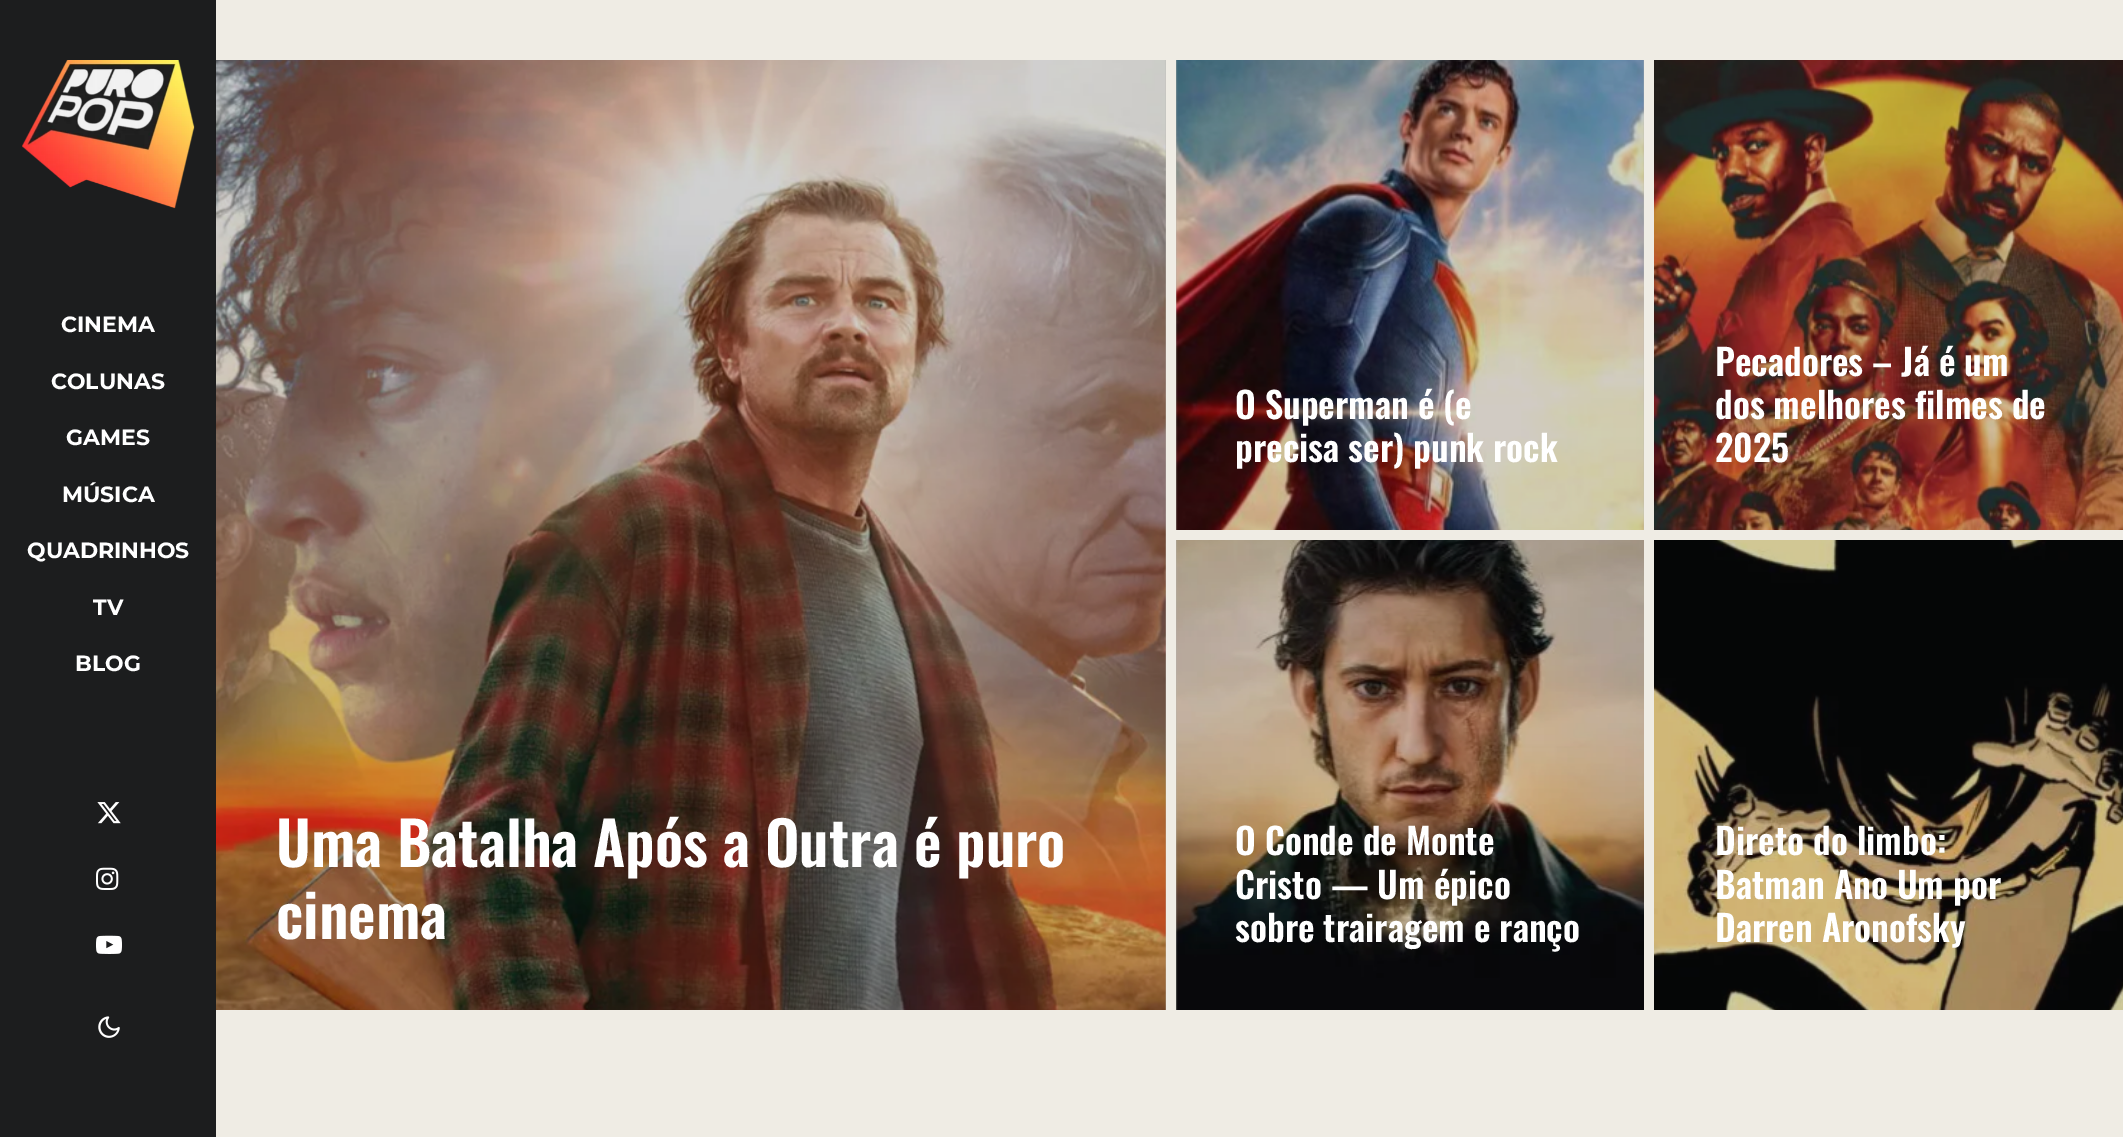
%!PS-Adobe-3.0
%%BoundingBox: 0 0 2123 1137
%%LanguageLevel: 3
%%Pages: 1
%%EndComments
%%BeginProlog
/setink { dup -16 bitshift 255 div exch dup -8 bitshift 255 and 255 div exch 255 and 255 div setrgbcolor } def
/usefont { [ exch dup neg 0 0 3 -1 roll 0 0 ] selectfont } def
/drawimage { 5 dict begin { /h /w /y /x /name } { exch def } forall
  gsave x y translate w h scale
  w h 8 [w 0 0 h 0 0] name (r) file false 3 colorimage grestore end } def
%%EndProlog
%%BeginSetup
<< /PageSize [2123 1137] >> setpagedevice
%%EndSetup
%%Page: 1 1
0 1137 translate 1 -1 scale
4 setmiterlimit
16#EFECE4 setink
0 0 2123 1137 rectfill
16#1C1D1E setink
0 0 216 1137 rectfill
(img1.raw) 22 60 173 149 drawimage
/Montserrat-Bold 22 usefont
16#FFFFFF setink
[
    [(CINEMA) 61 332]
    [(COLUNAS) 51 389]
    [(GAMES) 66 445]
    [(MÚSICA) 62 502]
    [(QUADRINHOS) 27 558]
    [(TV) 93 615]
    [(BLOG) 75 671]
] { aload pop moveto show } forall
(img2.raw) 97 802 24 22 drawimage
(img3.raw) 96 867 23 23 drawimage
(img4.raw) 96 935 26 19 drawimage
(img5.raw) 98 1016 22 22 drawimage
(img6.raw) 216 60 950 950 drawimage
/Oswald-SemiBold 60 usefont
276 867 moveto (Uma Batalha Após a Outra é puro) show
276 939 moveto (cinema) show
16#B7B5AF setink
1176 60 468 470 rectfill
(img7.raw) 1176 60 468 470 drawimage
/Oswald-SemiBold 36 usefont
16#FFFFFF setink
1235 419 moveto (O Superman é \(e) show
1235 462 moveto (precisa ser\) punk rock) show
(img8.raw) 1654 60 469 470 drawimage
[
    [(Pecadores – Já é um) 1715 376]
    [(dos melhores filmes de) 1715 419]
    [(2025) 1715 462]
] { aload pop moveto show } forall
16#B7B5AF setink
1176 540 2 470 rectfill
(img9.raw) 1176 540 468 470 drawimage
16#FFFFFF setink
[
    [(O Conde de Monte) 1235 855]
    [(Cristo — Um épico) 1235 899]
    [(sobre trairagem e ranço) 1235 942]
] { aload pop moveto show } forall
(img10.raw) 1654 540 469 470 drawimage
[
    [(Direto do limbo:) 1715 855]
    [(Batman Ano Um por) 1715 899]
    [(Darren Aronofsky) 1715 942]
] { aload pop moveto show } forall
showpage
%%EOF
